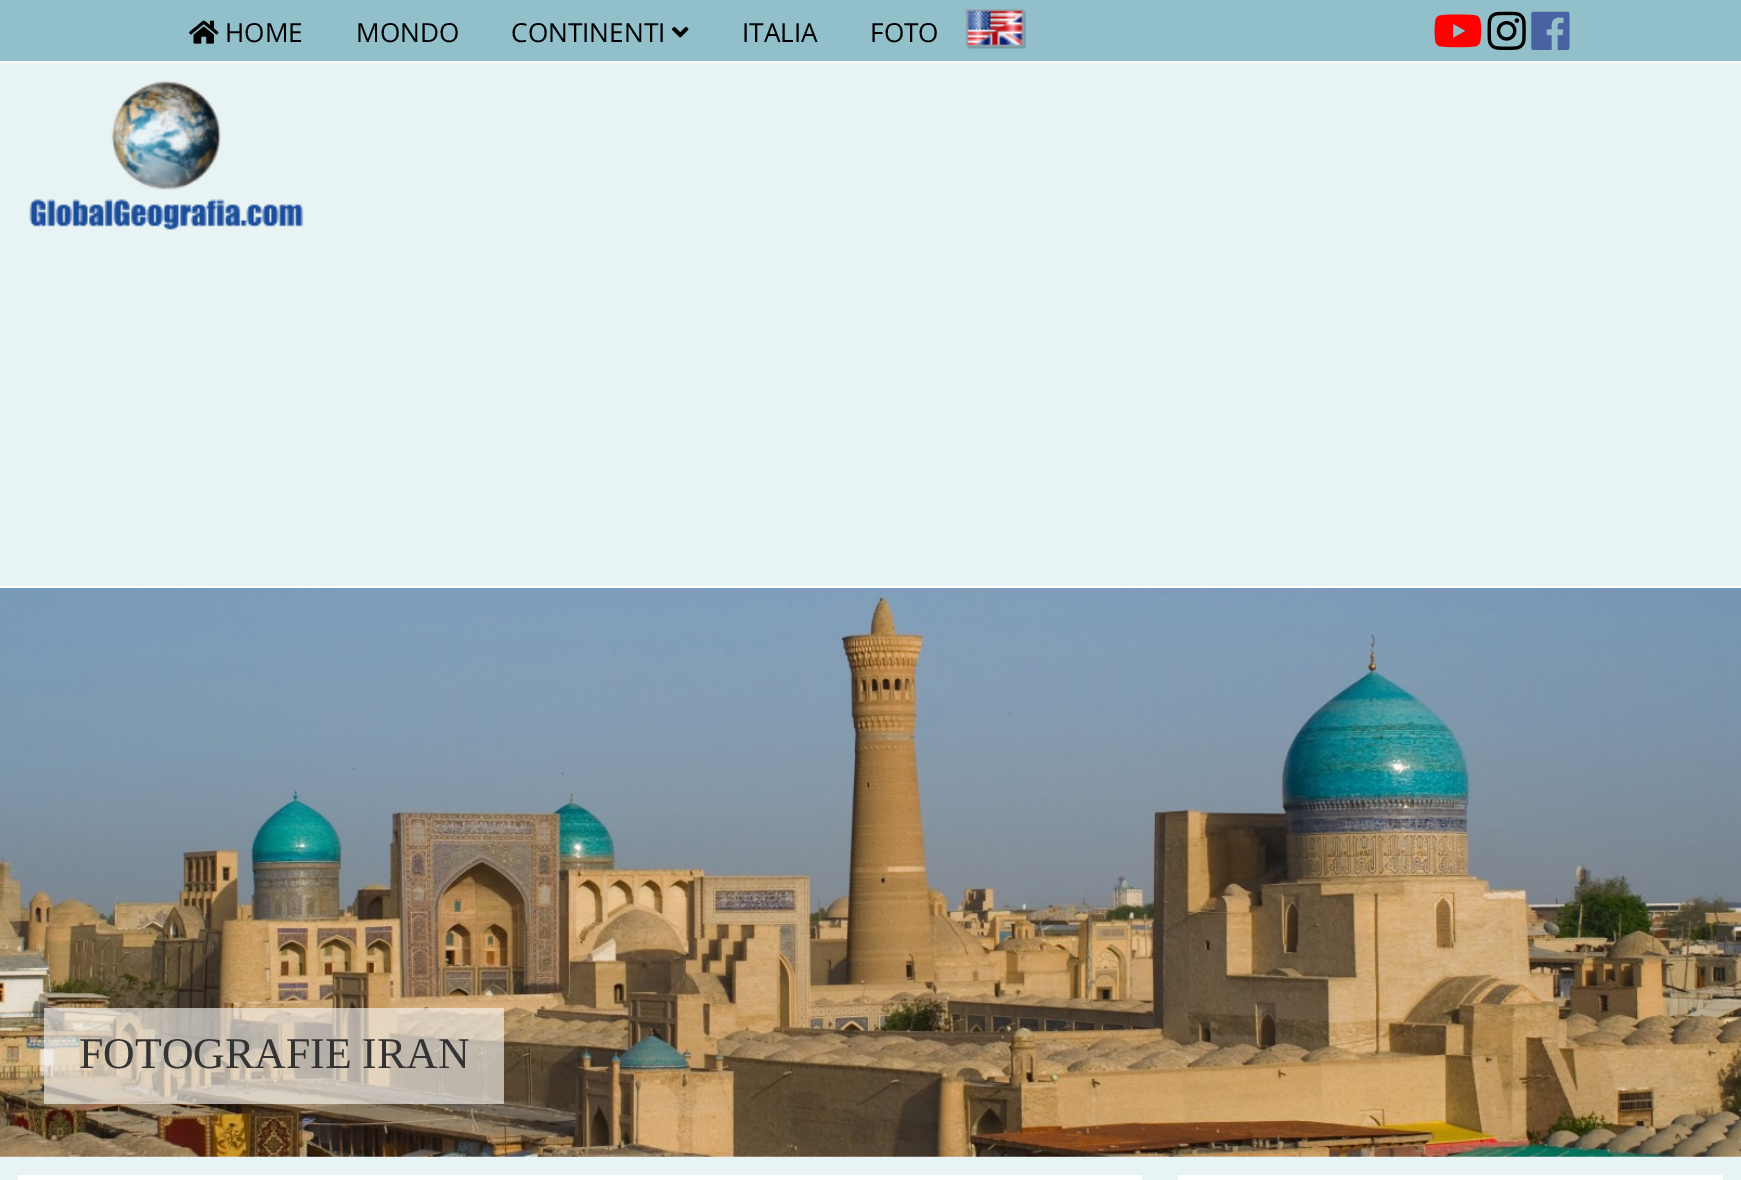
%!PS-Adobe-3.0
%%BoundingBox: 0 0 1741 1180
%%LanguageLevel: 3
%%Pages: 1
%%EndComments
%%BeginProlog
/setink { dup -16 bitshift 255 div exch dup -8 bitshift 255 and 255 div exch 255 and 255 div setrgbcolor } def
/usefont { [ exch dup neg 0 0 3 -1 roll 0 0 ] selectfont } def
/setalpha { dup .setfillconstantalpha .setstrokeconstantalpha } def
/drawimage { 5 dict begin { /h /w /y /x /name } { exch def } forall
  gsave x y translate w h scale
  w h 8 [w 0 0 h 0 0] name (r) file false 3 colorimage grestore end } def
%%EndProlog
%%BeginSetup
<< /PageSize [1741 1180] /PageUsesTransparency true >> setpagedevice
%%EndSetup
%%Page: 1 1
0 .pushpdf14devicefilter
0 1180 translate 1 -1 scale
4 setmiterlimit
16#E8F4F4 setink
0 0 1741 1180 rectfill
16#91C0CA setink
0 0 1741 61 rectfill
16#FFFFFF setink
0 61 1741 2 rectfill
(img1.raw) 189 20 30 24 drawimage
/OpenSans-Regular 26.25 usefont
16#000000 setink
[
    [(HOME) 225 42]
    [(MONDO) 356 42]
    [(CONTINENTI) 511 42]
] { aload pop moveto show } forall
(img2.raw) 672 26 17 12 drawimage
742 42 moveto (ITALIA) show
870 42 moveto (FOTO) show
(img3.raw) 965 9 61 40 drawimage
(img4.raw) 1434 14 48 34 drawimage
(img5.raw) 1487 11 39 39 drawimage
(img6.raw) 1531 11 39 39 drawimage
(img7.raw) 29 80 275 150 drawimage
(img8.raw) 0 588 1741 569 drawimage
16#FFFFFF setink
0 586 1741 2 rectfill
0.65 setalpha
16#F6F3EE setink
44 1008 460 96 rectfill
/LiberationSerif-Regular 43.75 usefont
1 setalpha
16#333333 setink
79 1068 moveto (FOTOGRAFIE IRAN) show
16#FFFFFF setink
18 1175 1124 5 rectfill
1178 1175 545 5 rectfill
.poppdf14devicefilter showpage
%%EOF
